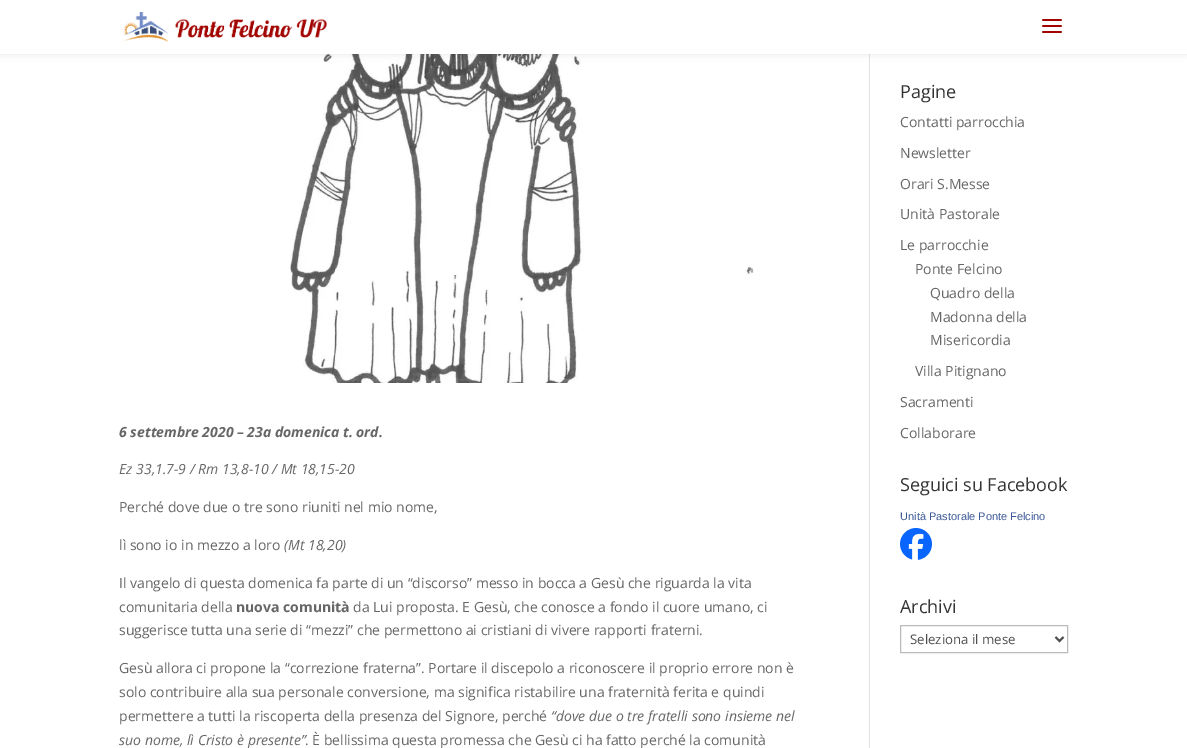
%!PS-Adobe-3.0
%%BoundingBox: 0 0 1187 748
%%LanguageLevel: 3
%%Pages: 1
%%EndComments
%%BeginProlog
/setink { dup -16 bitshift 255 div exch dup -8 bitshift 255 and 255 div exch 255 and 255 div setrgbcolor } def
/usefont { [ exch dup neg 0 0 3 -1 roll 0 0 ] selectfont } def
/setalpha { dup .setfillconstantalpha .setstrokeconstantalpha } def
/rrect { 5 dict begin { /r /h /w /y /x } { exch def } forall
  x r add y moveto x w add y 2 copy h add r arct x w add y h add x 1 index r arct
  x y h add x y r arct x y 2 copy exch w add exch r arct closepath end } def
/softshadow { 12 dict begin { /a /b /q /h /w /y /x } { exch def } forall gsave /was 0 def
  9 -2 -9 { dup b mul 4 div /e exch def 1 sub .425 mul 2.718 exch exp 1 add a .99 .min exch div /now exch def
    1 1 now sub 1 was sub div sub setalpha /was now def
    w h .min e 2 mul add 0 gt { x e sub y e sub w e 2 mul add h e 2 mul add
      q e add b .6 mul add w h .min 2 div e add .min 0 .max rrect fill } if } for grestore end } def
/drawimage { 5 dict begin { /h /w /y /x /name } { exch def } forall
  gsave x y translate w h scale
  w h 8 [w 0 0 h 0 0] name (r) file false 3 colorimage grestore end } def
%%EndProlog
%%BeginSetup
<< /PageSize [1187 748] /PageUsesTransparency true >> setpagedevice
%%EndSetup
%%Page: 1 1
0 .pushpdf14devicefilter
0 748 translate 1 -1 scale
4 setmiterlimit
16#FFFFFF setink
0 0 1187 748 rectfill
16#E2E2E2 setink
869 54 1 694 rectfill
(img3.raw) 290 54 464 329 drawimage
16#000000 setink
0 0 1187 54 0 3.5 0.1 softshadow
16#FFFFFF setink
0 0 1187 54 rectfill
(img1.raw) 123 12 204 30 drawimage
(img2.raw) 1042 19 20 14 drawimage
/OpenSans-BoldItalic 14 usefont
16#666666 setink
119 437 moveto (6 settembre 2020 – 23a domenica t. ord.) show
/OpenSans-Italic 14 usefont
119 474 moveto (Ez 33,1.7-9 / Rm 13,8-10 / Mt 18,15-20) show
/OpenSans-Regular 14 usefont
119 512 moveto (Perché dove due o tre sono riuniti nel mio nome,) show
119 550 moveto (lì sono io in mezzo a loro) show
/OpenSans-Italic 14 usefont
284 550 moveto (\(Mt 18,20\)) show
/OpenSans-Regular 14 usefont
119 588 moveto (Il vangelo di questa domenica fa parte di un “discorso” messo in bocca a Gesù che riguarda la vita) show
119 612 moveto (comunitaria della) show
/OpenSans-Bold 14 usefont
236 612 moveto (nuova comunità) show
/OpenSans-Regular 14 usefont
[
    [(da Lui proposta. E Gesù, che conosce a fondo il cuore umano, ci) 353 612]
    [(suggerisce tutta una serie di “mezzi” che permettono ai cristiani di vivere rapporti fraterni.) 119 635]
    [(Gesù allora ci propone la “correzione fraterna”. Portare il discepolo a riconoscere il proprio errore non è) 119 673]
    [(solo contribuire alla sua personale conversione, ma significa ristabilire una fraternità ferita e quindi) 119 697]
    [(permettere a tutti la riscoperta della presenza del Signore, perché) 119 721]
] { aload pop moveto show } forall
/OpenSans-Italic 14 usefont
551 721 moveto (“dove due o tre fratelli sono insieme nel) show
119 745 moveto (suo nome, lì Cristo è presente”) show
/OpenSans-Regular 14 usefont
305 745 moveto (. È bellissima questa promessa che Gesù ci ha fatto perché la comunità) show
/OpenSans-Regular 18 usefont
16#333333 setink
900 98 moveto (Pagine) show
/OpenSans-Regular 14 usefont
16#666666 setink
[
    [(Contatti parrocchia) 900 127]
    [(Newsletter) 900 158]
    [(Orari S.Messe) 900 189]
    [(Unità Pastorale) 900 219]
    [(Le parrocchie) 900 250]
    [(Ponte Felcino) 915 274]
    [(Quadro della) 930 298]
    [(Madonna della) 930 322]
    [(Misericordia) 930 345]
    [(Villa Pitignano) 915 376]
    [(Sacramenti) 900 407]
    [(Collaborare) 900 438]
] { aload pop moveto show } forall
/OpenSans-Regular 18 usefont
16#333333 setink
900 491 moveto (Seguici su Facebook) show
/LiberationSans-Regular 11 usefont
16#3B5998 setink
900 520 moveto (Unità Pastorale Ponte Felcino) show
(img4.raw) 900 528 32 32 drawimage
/OpenSans-Regular 18 usefont
16#333333 setink
900 613 moveto (Archivi) show
16#BBBBBB setink
900.5 625.5 167 27 rectstroke
16#4E4E4E setink
2 setlinewidth
1055.5 637 moveto 1059.5 641 lineto 1063.5 637 lineto stroke
/OpenSans-Regular 13.25 usefont
910 644 moveto (Seleziona il mese) show
.poppdf14devicefilter showpage
%%EOF
